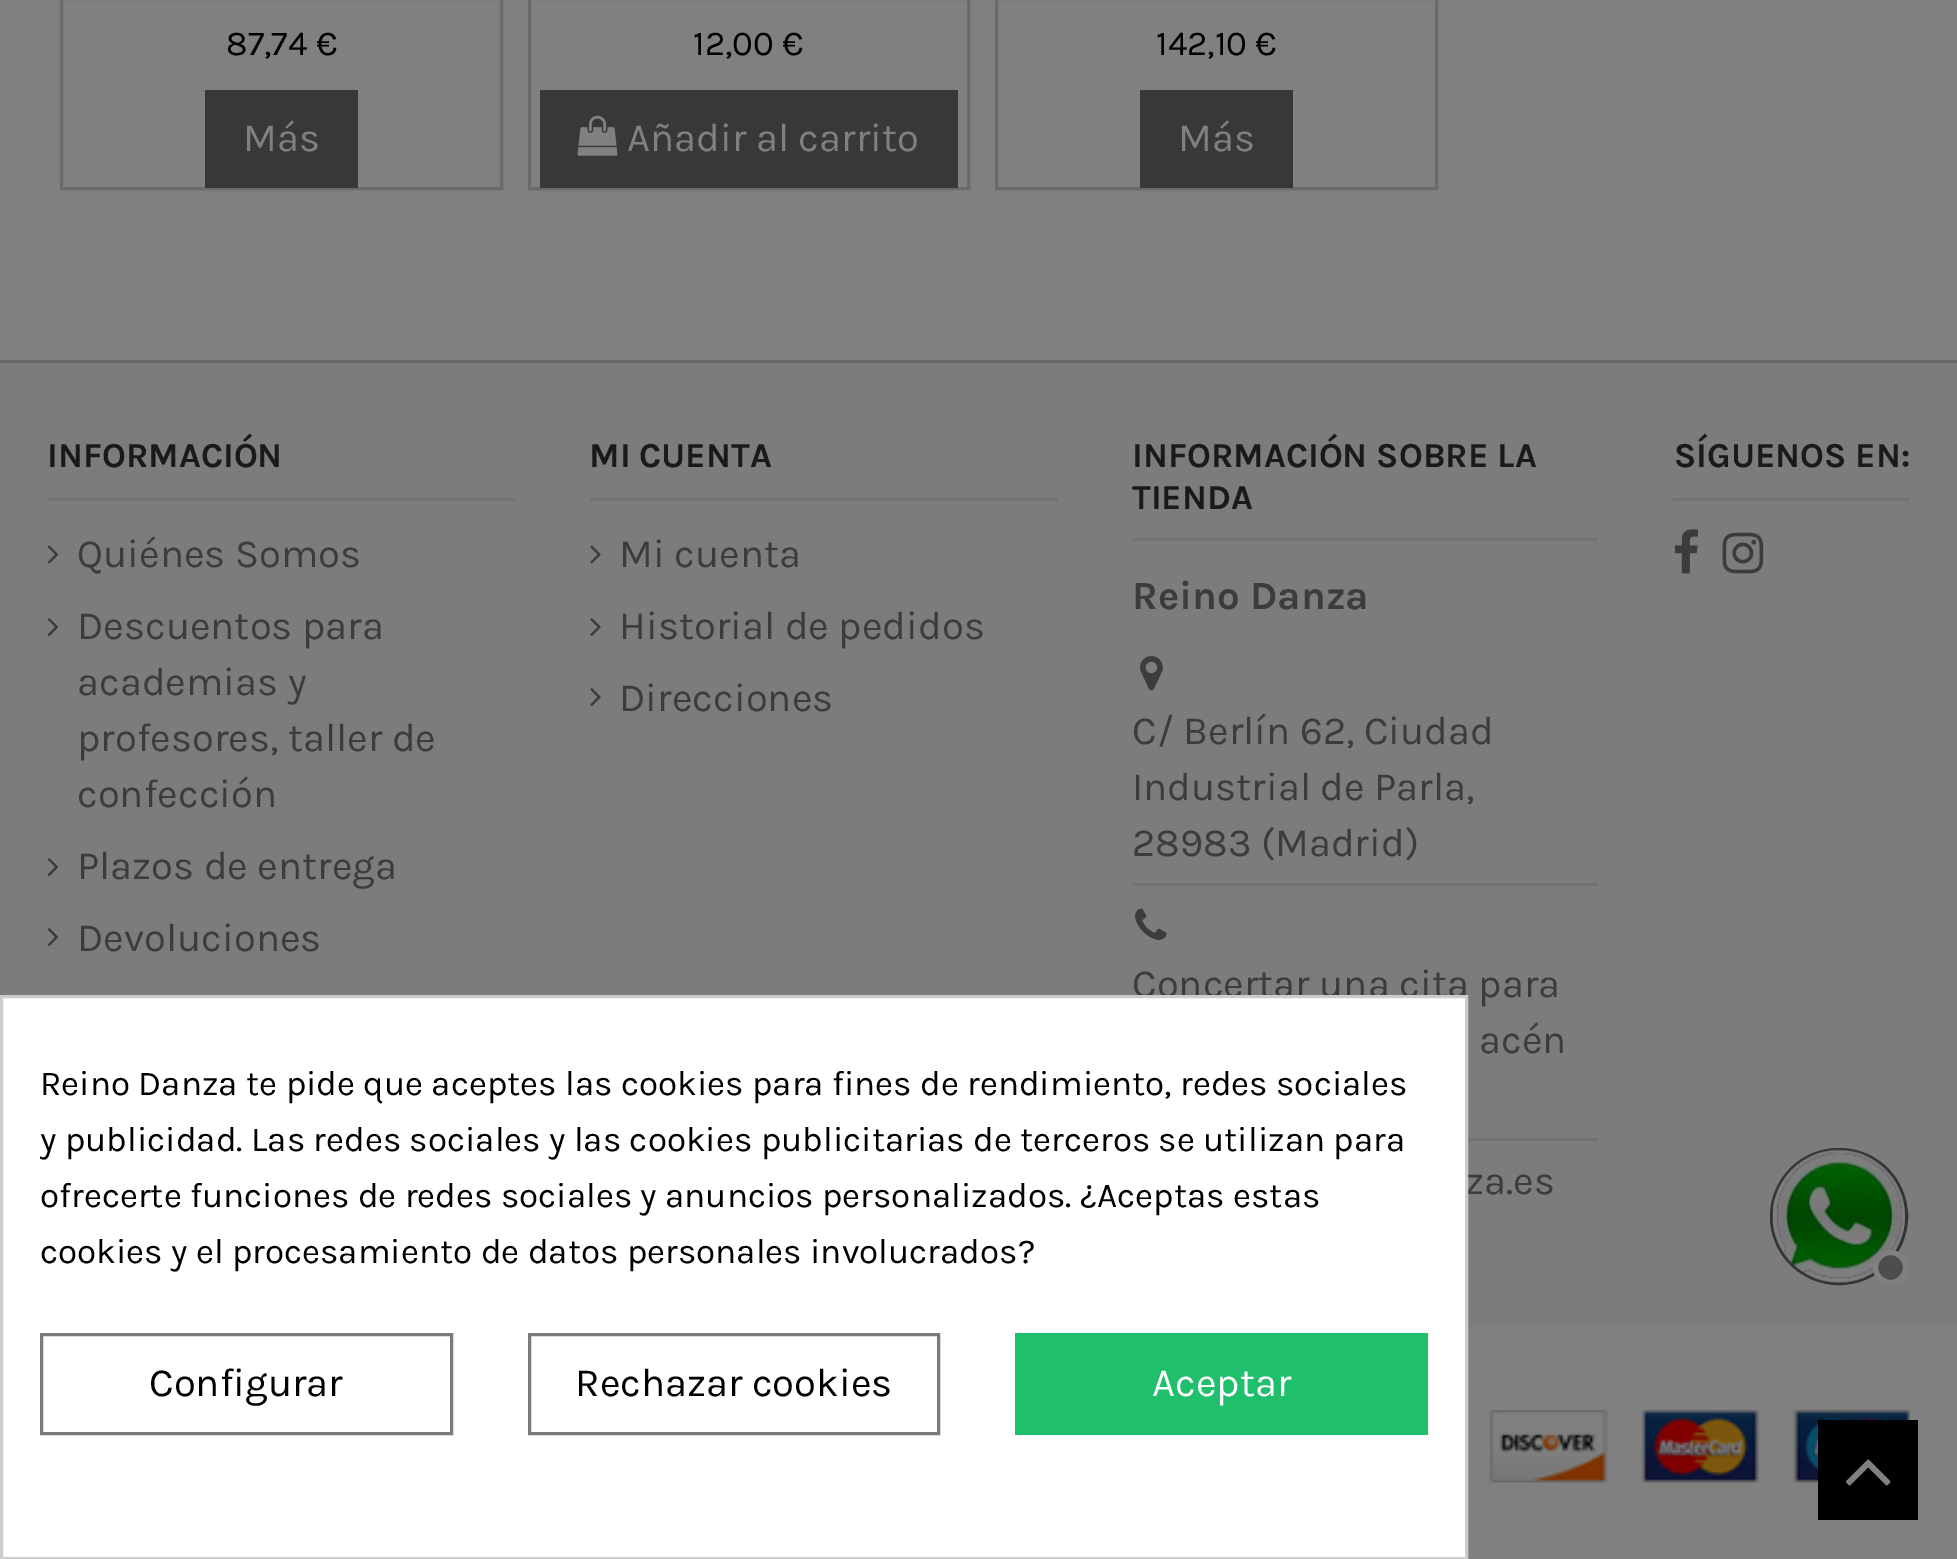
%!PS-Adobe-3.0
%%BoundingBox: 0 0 1957 1559
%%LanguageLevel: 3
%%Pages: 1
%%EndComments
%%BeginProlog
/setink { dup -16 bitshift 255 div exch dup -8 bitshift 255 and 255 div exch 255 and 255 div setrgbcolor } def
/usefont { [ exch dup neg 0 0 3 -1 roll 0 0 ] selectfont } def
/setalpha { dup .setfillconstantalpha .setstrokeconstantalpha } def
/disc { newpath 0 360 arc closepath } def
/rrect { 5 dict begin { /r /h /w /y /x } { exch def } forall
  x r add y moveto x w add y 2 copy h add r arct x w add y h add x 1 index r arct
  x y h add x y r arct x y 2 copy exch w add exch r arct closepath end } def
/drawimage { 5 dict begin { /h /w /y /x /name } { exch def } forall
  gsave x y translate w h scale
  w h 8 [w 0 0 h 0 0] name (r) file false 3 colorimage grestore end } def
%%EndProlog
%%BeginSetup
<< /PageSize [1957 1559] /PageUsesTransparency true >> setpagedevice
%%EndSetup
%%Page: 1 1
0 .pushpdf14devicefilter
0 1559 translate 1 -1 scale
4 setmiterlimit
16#808080 setink
0 0 1957 1559 rectfill
16#6B6A6A setink
3 setlinewidth
61.5 -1.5 440 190 rectstroke
/Karla-Regular 35 usefont
16#000000 setink
226 55 moveto (87,74 €) show
16#383838 setink
205 90 153 98 rectfill
/Karla-Regular 40 usefont
16#808080 setink
243 151 moveto (Más) show
16#6B6A6A setink
529.5 -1.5 439 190 rectstroke
/Karla-Regular 35 usefont
16#000000 setink
693 55 moveto (12,00 €) show
16#383838 setink
540 90 418 98 rectfill
(img1.raw) 577 115 41 41 drawimage
/Karla-Regular 40 usefont
16#808080 setink
627 151 moveto (Añadir al carrito) show
16#6B6A6A setink
996.5 -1.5 440 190 rectstroke
/Karla-Regular 35 usefont
16#000000 setink
1156 55 moveto (142,10 €) show
16#383838 setink
1140 90 153 98 rectfill
/Karla-Regular 40 usefont
16#808080 setink
1178 151 moveto (Más) show
[
    [0 363 1957 960 16#7C7C7C]
    [0 360 1957 3 16#666666]
    [48 498 467 3 16#727272]
] { aload pop setink rectfill } forall
/Karla-Bold 35 usefont
16#1A1A1A setink
47 467 moveto (INFORMACIÓN) show
(img2.raw) 47 545 12 19 drawimage
/Karla-Regular 40 usefont
16#3C3C3C setink
77 567 moveto (Quiénes Somos) show
(img3.raw) 47 618 12 18 drawimage
[
    [(Descuentos para) 77 639]
    [(academias y) 77 695]
    [(profesores, taller de) 77 751]
    [(confección) 77 807]
] { aload pop moveto show } forall
(img3.raw) 47 858 12 18 drawimage
77 879 moveto (Plazos de entrega) show
(img3.raw) 47 928 12 18 drawimage
77 951 moveto (Devoluciones) show
16#727272 setink
590 498 468 3 rectfill
/Karla-Bold 35 usefont
16#1A1A1A setink
589 467 moveto (MI CUENTA) show
(img4.raw) 590 545 11 19 drawimage
/Karla-Regular 40 usefont
16#3C3C3C setink
619 567 moveto (Mi cuenta) show
(img5.raw) 590 618 11 18 drawimage
619 639 moveto (Historial de pedidos) show
(img5.raw) 590 688 11 18 drawimage
619 711 moveto (Direcciones) show
16#727272 setink
1133 538 465 3 rectfill
/Karla-Bold 35 usefont
16#1A1A1A setink
1132 467 moveto (INFORMACIÓN SOBRE LA) show
1132 509 moveto (TIENDA) show
/Karla-Bold 40 usefont
16#3C3C3C setink
1132 609 moveto (Reino Danza) show
(img6.raw) 1140 656 23 35 drawimage
/Karla-Regular 40 usefont
[
    [(C/ Berlín 62, Ciudad) 1132 744]
    [(Industrial de Parla,) 1132 800]
    [(28983 \(Madrid\)) 1132 856]
] { aload pop moveto show } forall
16#717171 setink
1133 883 465 3 rectfill
(img7.raw) 1135 908 32 32 drawimage
16#3C3C3C setink
1132 997 moveto (Concertar una cita para) show
1479 1053 moveto (acén) show
16#717171 setink
1468 1138 130 3 rectfill
16#3C3C3C setink
1465 1194 moveto (za.es) show
16#727272 setink
1673 498 237 3 rectfill
/Karla-Bold 35 usefont
16#1A1A1A setink
1674 467 moveto (SÍGUENOS EN:) show
(img8.raw) 1675 529 23 45 drawimage
(img9.raw) 1722 532 42 42 drawimage
16#707070 setink
1770 1148 138 137 68.5 rrect fill
0.25 setalpha
16#4D4D4D setink
1770 1148 138 137 68.5 rrect fill
1771.5 1149.5 135 134 67 rrect fill
1 setalpha
16#333333 setink
1771.5 1149.5 135 134 67 rrect stroke
(img10.raw) 1772 1149 133 134 drawimage
16#4D4D4D setink
1890.5 1267.5 15 disc gsave fill grestore
16#808080 setink
5 setlinewidth
stroke
(img11.raw) 1489 1410 421 73 drawimage
16#FFFFFF setink
1.5 996.5 moveto 1466.5 996.5 lineto 1466.5 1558.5 lineto 1.5 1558.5 lineto closepath gsave fill grestore
16#CCCCCC setink
3 setlinewidth
stroke
/Karla-Regular 35 usefont
16#000000 setink
40 1095 moveto (Reino Danza te pide que aceptes las cookies para fines de rendimiento, redes sociales) show
gsave
40 1058 1388 225 rectclip
40 1151 moveto (y publicidad. Las redes sociales y las cookies publicitarias de terceros se utilizan para) show
grestore
40 1207 moveto (ofrecerte funciones de redes sociales y anuncios personalizados. ¿Aceptas estas) show
40 1263 moveto (cookies y el procesamiento de datos personales involucrados?) show
16#7A7A7A setink
41.5 1334.5 410 99 rectstroke
/Karla-Regular 40 usefont
16#000000 setink
149 1396 moveto (Configurar) show
16#7A7A7A setink
529.5 1334.5 409 99 rectstroke
16#000000 setink
575 1396 moveto (Rechazar cookies) show
16#20BF6B setink
1015 1333 413 102 rectfill
16#FFFFFF setink
1152 1396 moveto (Aceptar) show
16#000000 setink
1818 1420 100 100 rectfill
(img12.raw) 1846 1459 45 27 drawimage
.poppdf14devicefilter showpage
%%EOF
